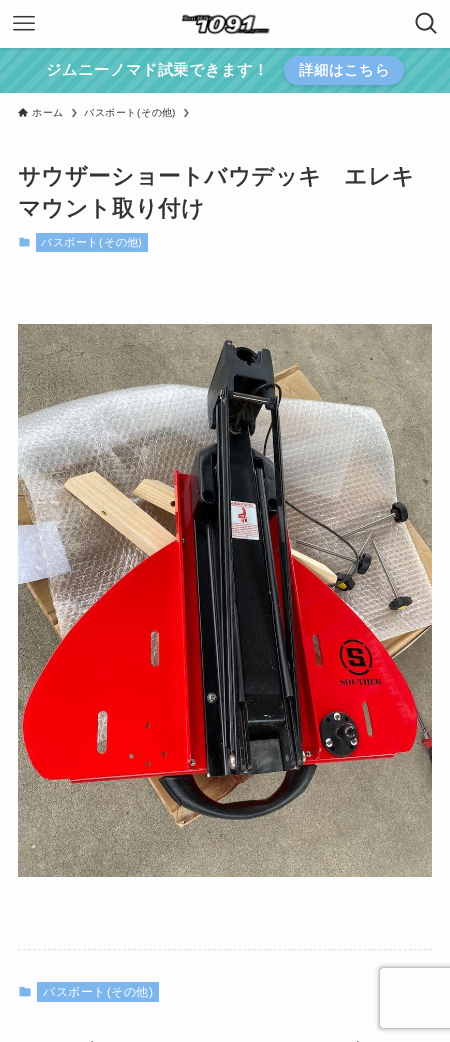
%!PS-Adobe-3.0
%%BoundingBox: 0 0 450 1042
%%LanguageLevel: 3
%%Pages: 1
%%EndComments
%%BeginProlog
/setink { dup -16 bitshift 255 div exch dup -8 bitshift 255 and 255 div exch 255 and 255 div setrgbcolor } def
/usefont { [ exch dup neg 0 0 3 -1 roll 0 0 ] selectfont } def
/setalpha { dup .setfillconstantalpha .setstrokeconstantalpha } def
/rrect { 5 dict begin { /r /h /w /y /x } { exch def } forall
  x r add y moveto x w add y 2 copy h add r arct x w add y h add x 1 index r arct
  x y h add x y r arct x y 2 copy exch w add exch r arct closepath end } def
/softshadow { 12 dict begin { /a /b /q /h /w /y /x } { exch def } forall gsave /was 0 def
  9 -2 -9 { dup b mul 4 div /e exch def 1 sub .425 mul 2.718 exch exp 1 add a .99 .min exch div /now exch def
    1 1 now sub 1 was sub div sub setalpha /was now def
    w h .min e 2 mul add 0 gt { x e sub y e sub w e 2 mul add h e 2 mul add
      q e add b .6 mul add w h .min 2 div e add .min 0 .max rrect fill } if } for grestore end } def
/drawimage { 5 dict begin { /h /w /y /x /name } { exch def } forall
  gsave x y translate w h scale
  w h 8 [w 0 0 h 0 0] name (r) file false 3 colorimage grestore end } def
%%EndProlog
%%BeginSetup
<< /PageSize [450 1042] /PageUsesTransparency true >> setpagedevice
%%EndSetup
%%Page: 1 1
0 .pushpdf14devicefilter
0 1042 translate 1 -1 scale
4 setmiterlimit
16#FDFDFD setink
0 0 450 1042 rectfill
gsave 0 48 moveto 450 48 lineto 450 93 lineto 0 93 lineto closepath clip newpath
<< /ShadingType 2 /ColorSpace /DeviceRGB /Coords [349 194 94 -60] /Extend [true true] /Function << /FunctionType 3 /Domain [0 1] /Functions [<< /FunctionType 2 /Domain [0 1] /C0 [0.392 0.765 0.765] /C1 [0.392 0.765 0.765] /N 1 >> << /FunctionType 2 /Domain [0 1] /C0 [0.325 0.737 0.737] /C1 [0.325 0.737 0.737] /N 1 >> << /FunctionType 2 /Domain [0 1] /C0 [0.392 0.765 0.765] /C1 [0.392 0.765 0.765] /N 1 >> << /FunctionType 2 /Domain [0 1] /C0 [0.325 0.737 0.737] /C1 [0.325 0.737 0.737] /N 1 >> << /FunctionType 2 /Domain [0 1] /C0 [0.392 0.765 0.765] /C1 [0.392 0.765 0.765] /N 1 >> << /FunctionType 2 /Domain [0 1] /C0 [0.325 0.737 0.737] /C1 [0.325 0.737 0.737] /N 1 >> << /FunctionType 2 /Domain [0 1] /C0 [0.392 0.765 0.765] /C1 [0.392 0.765 0.765] /N 1 >> << /FunctionType 2 /Domain [0 1] /C0 [0.325 0.737 0.737] /C1 [0.325 0.737 0.737] /N 1 >> << /FunctionType 2 /Domain [0 1] /C0 [0.392 0.765 0.765] /C1 [0.392 0.765 0.765] /N 1 >> << /FunctionType 2 /Domain [0 1] /C0 [0.325 0.737 0.737] /C1 [0.325 0.737 0.737] /N 1 >> << /FunctionType 2 /Domain [0 1] /C0 [0.392 0.765 0.765] /C1 [0.392 0.765 0.765] /N 1 >> << /FunctionType 2 /Domain [0 1] /C0 [0.325 0.737 0.737] /C1 [0.325 0.737 0.737] /N 1 >> << /FunctionType 2 /Domain [0 1] /C0 [0.392 0.765 0.765] /C1 [0.392 0.765 0.765] /N 1 >> << /FunctionType 2 /Domain [0 1] /C0 [0.325 0.737 0.737] /C1 [0.325 0.737 0.737] /N 1 >> << /FunctionType 2 /Domain [0 1] /C0 [0.392 0.765 0.765] /C1 [0.392 0.765 0.765] /N 1 >> << /FunctionType 2 /Domain [0 1] /C0 [0.325 0.737 0.737] /C1 [0.325 0.737 0.737] /N 1 >> << /FunctionType 2 /Domain [0 1] /C0 [0.392 0.765 0.765] /C1 [0.392 0.765 0.765] /N 1 >> << /FunctionType 2 /Domain [0 1] /C0 [0.325 0.737 0.737] /C1 [0.325 0.737 0.737] /N 1 >> << /FunctionType 2 /Domain [0 1] /C0 [0.392 0.765 0.765] /C1 [0.392 0.765 0.765] /N 1 >> << /FunctionType 2 /Domain [0 1] /C0 [0.325 0.737 0.737] /C1 [0.325 0.737 0.737] /N 1 >> << /FunctionType 2 /Domain [0 1] /C0 [0.392 0.765 0.765] /C1 [0.392 0.765 0.765] /N 1 >> << /FunctionType 2 /Domain [0 1] /C0 [0.325 0.737 0.737] /C1 [0.325 0.737 0.737] /N 1 >> << /FunctionType 2 /Domain [0 1] /C0 [0.392 0.765 0.765] /C1 [0.392 0.765 0.765] /N 1 >> << /FunctionType 2 /Domain [0 1] /C0 [0.325 0.737 0.737] /C1 [0.325 0.737 0.737] /N 1 >> << /FunctionType 2 /Domain [0 1] /C0 [0.392 0.765 0.765] /C1 [0.392 0.765 0.765] /N 1 >> << /FunctionType 2 /Domain [0 1] /C0 [0.325 0.737 0.737] /C1 [0.325 0.737 0.737] /N 1 >> << /FunctionType 2 /Domain [0 1] /C0 [0.392 0.765 0.765] /C1 [0.392 0.765 0.765] /N 1 >> << /FunctionType 2 /Domain [0 1] /C0 [0.325 0.737 0.737] /C1 [0.325 0.737 0.737] /N 1 >> << /FunctionType 2 /Domain [0 1] /C0 [0.392 0.765 0.765] /C1 [0.392 0.765 0.765] /N 1 >> << /FunctionType 2 /Domain [0 1] /C0 [0.325 0.737 0.737] /C1 [0.325 0.737 0.737] /N 1 >> << /FunctionType 2 /Domain [0 1] /C0 [0.392 0.765 0.765] /C1 [0.392 0.765 0.765] /N 1 >> << /FunctionType 2 /Domain [0 1] /C0 [0.325 0.737 0.737] /C1 [0.325 0.737 0.737] /N 1 >> << /FunctionType 2 /Domain [0 1] /C0 [0.392 0.765 0.765] /C1 [0.392 0.765 0.765] /N 1 >> << /FunctionType 2 /Domain [0 1] /C0 [0.325 0.737 0.737] /C1 [0.325 0.737 0.737] /N 1 >> << /FunctionType 2 /Domain [0 1] /C0 [0.392 0.765 0.765] /C1 [0.392 0.765 0.765] /N 1 >> << /FunctionType 2 /Domain [0 1] /C0 [0.325 0.737 0.737] /C1 [0.325 0.737 0.737] /N 1 >> << /FunctionType 2 /Domain [0 1] /C0 [0.392 0.765 0.765] /C1 [0.392 0.765 0.765] /N 1 >> << /FunctionType 2 /Domain [0 1] /C0 [0.325 0.737 0.737] /C1 [0.325 0.737 0.737] /N 1 >> << /FunctionType 2 /Domain [0 1] /C0 [0.392 0.765 0.765] /C1 [0.392 0.765 0.765] /N 1 >> << /FunctionType 2 /Domain [0 1] /C0 [0.325 0.737 0.737] /C1 [0.325 0.737 0.737] /N 1 >> << /FunctionType 2 /Domain [0 1] /C0 [0.392 0.765 0.765] /C1 [0.392 0.765 0.765] /N 1 >> << /FunctionType 2 /Domain [0 1] /C0 [0.325 0.737 0.737] /C1 [0.325 0.737 0.737] /N 1 >> << /FunctionType 2 /Domain [0 1] /C0 [0.392 0.765 0.765] /C1 [0.392 0.765 0.765] /N 1 >> << /FunctionType 2 /Domain [0 1] /C0 [0.325 0.737 0.737] /C1 [0.325 0.737 0.737] /N 1 >> << /FunctionType 2 /Domain [0 1] /C0 [0.392 0.765 0.765] /C1 [0.392 0.765 0.765] /N 1 >> << /FunctionType 2 /Domain [0 1] /C0 [0.325 0.737 0.737] /C1 [0.325 0.737 0.737] /N 1 >> << /FunctionType 2 /Domain [0 1] /C0 [0.392 0.765 0.765] /C1 [0.392 0.765 0.765] /N 1 >> << /FunctionType 2 /Domain [0 1] /C0 [0.325 0.737 0.737] /C1 [0.325 0.737 0.737] /N 1 >> << /FunctionType 2 /Domain [0 1] /C0 [0.392 0.765 0.765] /C1 [0.392 0.765 0.765] /N 1 >> << /FunctionType 2 /Domain [0 1] /C0 [0.325 0.737 0.737] /C1 [0.325 0.737 0.737] /N 1 >> << /FunctionType 2 /Domain [0 1] /C0 [0.392 0.765 0.765] /C1 [0.392 0.765 0.765] /N 1 >> << /FunctionType 2 /Domain [0 1] /C0 [0.325 0.737 0.737] /C1 [0.325 0.737 0.737] /N 1 >> << /FunctionType 2 /Domain [0 1] /C0 [0.392 0.765 0.765] /C1 [0.392 0.765 0.765] /N 1 >> << /FunctionType 2 /Domain [0 1] /C0 [0.325 0.737 0.737] /C1 [0.325 0.737 0.737] /N 1 >> << /FunctionType 2 /Domain [0 1] /C0 [0.392 0.765 0.765] /C1 [0.392 0.765 0.765] /N 1 >> << /FunctionType 2 /Domain [0 1] /C0 [0.325 0.737 0.737] /C1 [0.325 0.737 0.737] /N 1 >> << /FunctionType 2 /Domain [0 1] /C0 [0.392 0.765 0.765] /C1 [0.392 0.765 0.765] /N 1 >> << /FunctionType 2 /Domain [0 1] /C0 [0.325 0.737 0.737] /C1 [0.325 0.737 0.737] /N 1 >> << /FunctionType 2 /Domain [0 1] /C0 [0.392 0.765 0.765] /C1 [0.392 0.765 0.765] /N 1 >> << /FunctionType 2 /Domain [0 1] /C0 [0.325 0.737 0.737] /C1 [0.325 0.737 0.737] /N 1 >>] /Bounds [0.02 0.03 0.05 0.07 0.08 0.1 0.12 0.13 0.15 0.17 0.18 0.2 0.22 0.23 0.25 0.27 0.28 0.3 0.32 0.33 0.35 0.37 0.38 0.4 0.42 0.43 0.45 0.47 0.48 0.5 0.52 0.53 0.55 0.57 0.58 0.6 0.62 0.63 0.65 0.67 0.68 0.7 0.72 0.73 0.75 0.77 0.78 0.8 0.82 0.83 0.85 0.87 0.88 0.9 0.92 0.93 0.95 0.97 0.98] /Encode [0 1 0 1 0 1 0 1 0 1 0 1 0 1 0 1 0 1 0 1 0 1 0 1 0 1 0 1 0 1 0 1 0 1 0 1 0 1 0 1 0 1 0 1 0 1 0 1 0 1 0 1 0 1 0 1 0 1 0 1 0 1 0 1 0 1 0 1 0 1 0 1 0 1 0 1 0 1 0 1 0 1 0 1 0 1 0 1 0 1 0 1 0 1 0 1 0 1 0 1 0 1 0 1 0 1 0 1 0 1 0 1 0 1 0 1 0 1 0 1] >> >> shfill grestore
gsave
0 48 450 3 rectclip
16#000000 setink
0 1 450 48 0 2 0.12 softshadow
grestore
(img1.raw) 13 15 22 16 drawimage
(img2.raw) 181 14 89 21 drawimage
(img3.raw) 415 12 22 22 drawimage
/WenQuanYiZenHei-Bold 15.25 usefont
16#FFFFFF setink
46 75 moveto 0.4 0 (ジムニーノマド試乗できます！) ashow
16#000000 setink
284 58 120 29 14.5 2 0.12 softshadow
16#7DB5ED setink
284 56 120 29 14.5 rrect fill
/WenQuanYiZenHei-Bold 14.5 usefont
16#FFFFFF setink
299 75 moveto 0.4 0 (詳細はこちら) ashow
(img4.raw) 18 108 10 9 drawimage
/WenQuanYiZenHei-Medium 10 usefont
16#333333 setink
32 116 moveto 0.4 0 (ホーム) ashow
16#5B5B5B setink
73.5 109 moveto 72 109 lineto 75 113 lineto 72 117 lineto 73.5 117 lineto 76.5 113 lineto closepath fill
16#333333 setink
84 116 moveto 0.4 0 (バスボート) ashow
/LiberationSans-Regular 10 usefont
137 116 moveto 0.4 0 (\() ashow
/WenQuanYiZenHei-Medium 10 usefont
141 116 moveto 0.4 0 (その他) ashow
/LiberationSans-Regular 10 usefont
172 116 moveto 0.4 0 (\)) ashow
16#5B5B5B setink
185.5 109 moveto 184 109 lineto 187 113 lineto 184 117 lineto 185.5 117 lineto 188.5 113 lineto closepath fill
/WenQuanYiZenHei-Bold 22.5 usefont
16#333333 setink
18 184 moveto 0.4 0 (サウザーショートバウデッキ　エレキ) ashow
18 216 moveto 0.4 0 (マウント取り付け) ashow
(img5.raw) 19 237 11 10 drawimage
16#7DB5ED setink
36 233 112 19 1 rrect fill
/WenQuanYiZenHei-Medium 11 usefont
16#FFFFFF setink
41 246 moveto 0.4 0 (バスボート) ashow
/LiberationSans-Regular 11 usefont
99 246 moveto 0.4 0 (\() ashow
/WenQuanYiZenHei-Medium 11 usefont
104 246 moveto 0.4 0 (その他) ashow
/LiberationSans-Regular 11 usefont
138 246 moveto 0.4 0 (\)) ashow
(img6.raw) 18 324 414 553 drawimage
16#E2E2E2 setink
[3 2.01] 0 setdash
18 949.5 moveto 432 949.5 lineto stroke
(img7.raw) 19 986 12 11 drawimage
16#7DB5ED setink
37 982 122 20 1 rrect fill
/WenQuanYiZenHei-Medium 12 usefont
16#FFFFFF setink
43 996 moveto 0.4 0 (バスボート) ashow
/LiberationSans-Regular 12 usefont
107 996 moveto 0.4 0 (\() ashow
/WenQuanYiZenHei-Medium 12 usefont
111 996 moveto 0.4 0 (その他) ashow
/LiberationSans-Regular 12 usefont
149 996 moveto 0.4 0 (\)) ashow
16#333333 setink
91.5 1041.5 moveto 92 1041 lineto 107.5 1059.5 lineto 107 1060 lineto closepath fill
358 1041 moveto 358.5 1041.5 lineto 343 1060 lineto 342 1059.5 lineto closepath fill
gsave
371 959 moveto 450 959 lineto 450 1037 lineto 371 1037 lineto closepath 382 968 moveto 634 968 lineto 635 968 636 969 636 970 curveto 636 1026 lineto 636 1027 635 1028 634 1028 curveto 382 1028 lineto 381 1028 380 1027 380 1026 curveto 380 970 lineto 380 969 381 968 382 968 curveto closepath eoclip newpath
16#808080 setink
380 968 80 60 2 2.5 1 softshadow
grestore
.poppdf14devicefilter showpage
%%EOF
